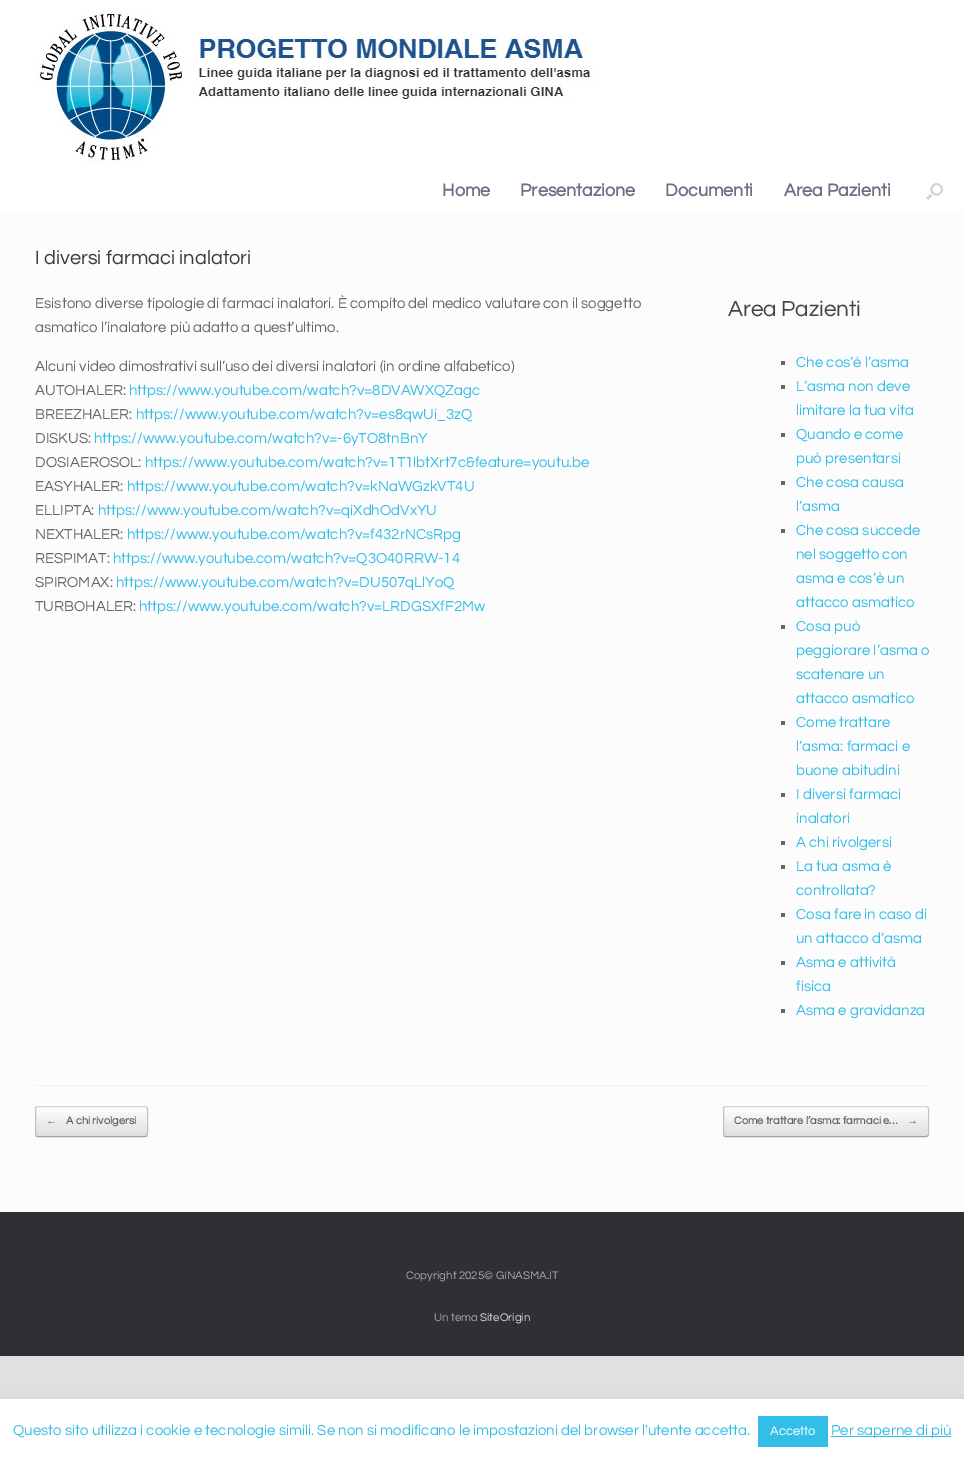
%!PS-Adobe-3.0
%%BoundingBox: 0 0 964 1459
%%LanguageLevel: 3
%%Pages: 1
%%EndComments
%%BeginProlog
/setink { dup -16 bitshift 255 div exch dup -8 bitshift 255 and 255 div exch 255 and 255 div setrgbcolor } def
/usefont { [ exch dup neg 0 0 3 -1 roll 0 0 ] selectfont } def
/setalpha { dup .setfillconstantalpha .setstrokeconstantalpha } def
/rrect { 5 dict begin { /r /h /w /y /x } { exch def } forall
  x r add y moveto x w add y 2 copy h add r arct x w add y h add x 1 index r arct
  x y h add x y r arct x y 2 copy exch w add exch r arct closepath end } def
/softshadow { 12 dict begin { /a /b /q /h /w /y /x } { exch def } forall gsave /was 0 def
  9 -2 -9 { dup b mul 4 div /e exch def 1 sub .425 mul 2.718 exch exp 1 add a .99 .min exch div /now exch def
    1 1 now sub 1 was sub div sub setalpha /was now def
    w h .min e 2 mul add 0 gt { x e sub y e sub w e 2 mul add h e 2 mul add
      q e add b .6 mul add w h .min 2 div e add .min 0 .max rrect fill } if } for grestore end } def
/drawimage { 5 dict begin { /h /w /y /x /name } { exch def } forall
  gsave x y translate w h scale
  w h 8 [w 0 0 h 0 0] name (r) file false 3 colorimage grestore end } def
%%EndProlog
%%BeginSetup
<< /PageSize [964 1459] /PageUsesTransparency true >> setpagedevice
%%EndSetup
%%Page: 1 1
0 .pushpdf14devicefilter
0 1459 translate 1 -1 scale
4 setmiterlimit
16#E0E0E0 setink
0 0 964 1459 rectfill
16#FFFFFF setink
0 0 964 210 rectfill
(img1.raw) 35 12 560 152 drawimage
/Questrial-Bold 18 usefont
16#6E6E84 setink
[
    [(Home) 442 196]
    [(Presentazione) 520 196]
    [(Documenti) 665 196]
    [(Area Pazienti) 784 196]
] { aload pop moveto show } forall
(img2.raw) 926 183 17 17 drawimage
16#FCFCFC setink
0 210 964 1002 rectfill
16#EEEEEE setink
35 1085 894 1 rectfill
/Questrial-Regular 20 usefont
16#3B3B3B setink
35 264 moveto (I diversi farmaci inalatori) show
/Questrial-Regular 15 usefont
16#666666 setink
[
    [(Esistono diverse tipologie di farmaci inalatori. È compito del medico valutare con il soggetto) 35 308]
    [(asmatico l’inalatore più adatto a quest’ultimo.) 35 332]
    [(Alcuni video dimostrativi sull’uso dei diversi inalatori \(in ordine alfabetico\)) 35 371]
    [(AUTOHALER:) 35 395]
] { aload pop moveto show } forall
16#33BEE8 setink
129 395 moveto (https://www.youtube.com/watch?v=8DVAWXQZagc) show
16#666666 setink
35 419 moveto (BREEZHALER:) show
16#33BEE8 setink
136 419 moveto (https://www.youtube.com/watch?v=es8qwUi_3zQ) show
16#666666 setink
35 443 moveto (DISKUS:) show
16#33BEE8 setink
94 443 moveto (https://www.youtube.com/watch?v=-6yTO8tnBnY) show
16#666666 setink
35 467 moveto (DOSIAEROSOL:) show
16#33BEE8 setink
145 467 moveto (https://www.youtube.com/watch?v=1T1lbtXrt7c&feature=youtu.be) show
16#666666 setink
35 491 moveto (EASYHALER:) show
16#33BEE8 setink
127 491 moveto (https://www.youtube.com/watch?v=kNaWGzkVT4U) show
16#666666 setink
35 515 moveto (ELLIPTA:) show
16#33BEE8 setink
98 515 moveto (https://www.youtube.com/watch?v=qiXdhOdVxYU) show
16#666666 setink
35 539 moveto (NEXTHALER:) show
16#33BEE8 setink
127 539 moveto (https://www.youtube.com/watch?v=f432rNCsRpg) show
16#666666 setink
35 563 moveto (RESPIMAT:) show
16#33BEE8 setink
113 563 moveto (https://www.youtube.com/watch?v=Q3O40RRW-14) show
16#666666 setink
35 587 moveto (SPIROMAX:) show
16#33BEE8 setink
116 587 moveto (https://www.youtube.com/watch?v=DU507qLlYoQ) show
16#666666 setink
35 611 moveto (TURBOHALER:) show
16#33BEE8 setink
139 611 moveto (https://www.youtube.com/watch?v=LRDGSXfF2Mw) show
/Questrial-Regular 22.5 usefont
16#444444 setink
728 316 moveto (Area Pazienti) show
16#666666 setink
781 361 4 4 rectfill
/Questrial-Regular 15 usefont
16#33BEE8 setink
796 367 moveto (Che cos’è l’asma) show
16#666666 setink
781 385 4 4 rectfill
16#33BEE8 setink
796 391 moveto (L’asma non deve) show
796 415 moveto (limitare la tua vita) show
16#666666 setink
781 433 4 4 rectfill
16#33BEE8 setink
796 439 moveto (Quando e come) show
796 463 moveto (può presentarsi) show
16#666666 setink
781 481 4 4 rectfill
16#33BEE8 setink
796 487 moveto (Che cosa causa) show
796 511 moveto (l’asma) show
16#666666 setink
781 529 4 4 rectfill
16#33BEE8 setink
[
    [(Che cosa succede) 796 535]
    [(nel soggetto con) 796 559]
    [(asma e cos’è un) 796 583]
    [(attacco asmatico) 796 607]
] { aload pop moveto show } forall
16#666666 setink
781 625 4 4 rectfill
16#33BEE8 setink
[
    [(Cosa può) 796 631]
    [(peggiorare l’asma o) 796 655]
    [(scatenare un) 796 679]
    [(attacco asmatico) 796 703]
] { aload pop moveto show } forall
16#666666 setink
781 721 4 4 rectfill
16#33BEE8 setink
[
    [(Come trattare) 796 727]
    [(l’asma: farmaci e) 796 751]
    [(buone abitudini) 796 775]
] { aload pop moveto show } forall
16#666666 setink
781 793 4 4 rectfill
16#33BEE8 setink
796 799 moveto (I diversi farmaci) show
796 823 moveto (inalatori) show
16#666666 setink
781 841 4 4 rectfill
16#33BEE8 setink
796 847 moveto (A chi rivolgersi) show
16#666666 setink
781 865 4 4 rectfill
16#33BEE8 setink
796 871 moveto (La tua asma è) show
796 895 moveto (controllata?) show
16#666666 setink
781 913 4 4 rectfill
16#33BEE8 setink
796 919 moveto (Cosa fare in caso di) show
796 943 moveto (un attacco d’asma) show
16#666666 setink
781 961 4 4 rectfill
16#33BEE8 setink
796 967 moveto (Asma e attività) show
796 991 moveto (fisica) show
16#666666 setink
781 1009 4 4 rectfill
16#33BEE8 setink
796 1015 moveto (Asma e gravidanza) show
gsave
35 1106 113 31 3 rrect clip newpath
gsave 35 1107 moveto 148 1107 lineto 148 1136 lineto 35 1136 lineto closepath clip newpath
<< /ShadingType 2 /ColorSpace /DeviceRGB /Coords [36 1136 36 1107] /Extend [true true] /Function << /FunctionType 2 /Domain [0 1] /C0 [0.875 0.875 0.875] /C1 [1 1 1] /N 1 >> >> shfill grestore
grestore
16#D2D2D2 setink
36 1107 moveto 38 1106.5 lineto 145 1106.5 lineto 147 1107 lineto stroke
16#C3C3C3 setink
147 1107 moveto 147 1107.5 147.5 1108.5 147.5 1109 curveto 147.5 1134 lineto 147.5 1134.5 147 1135.5 147 1136 curveto stroke
16#9F9F9F setink
147 1136 moveto 145 1136.5 lineto 38 1136.5 lineto 36 1136 lineto stroke
16#C3C3C3 setink
36 1136 moveto 36 1135.5 35.5 1134.5 35.5 1134 curveto 35.5 1109 lineto 35.5 1108.5 36 1107.5 36 1107 curveto stroke
/LiberationSerif-Bold 11 usefont
16#666666 setink
46 1124 moveto (←) show
/Questrial-Bold 11 usefont
66 1124 moveto (A chi rivolgersi) show
gsave
723 1106 206 31 3 rrect clip newpath
gsave 723 1107 moveto 929 1107 lineto 929 1136 lineto 723 1136 lineto closepath clip newpath
<< /ShadingType 2 /ColorSpace /DeviceRGB /Coords [724 1136 724 1107] /Extend [true true] /Function << /FunctionType 2 /Domain [0 1] /C0 [0.875 0.875 0.875] /C1 [1 1 1] /N 1 >> >> shfill grestore
grestore
16#D2D2D2 setink
724 1107 moveto 726 1106.5 lineto 926 1106.5 lineto 928 1107 lineto stroke
16#C3C3C3 setink
928 1107 moveto 928 1107.5 928.5 1108.5 928.5 1109 curveto 928.5 1134 lineto 928.5 1134.5 928 1135.5 928 1136 curveto stroke
16#9F9F9F setink
928 1136 moveto 926 1136.5 lineto 726 1136.5 lineto 724 1136 lineto stroke
16#C3C3C3 setink
724 1136 moveto 724 1135.5 723.5 1134.5 723.5 1134 curveto 723.5 1109 lineto 723.5 1108.5 724 1107.5 724 1107 curveto stroke
16#666666 setink
734 1124 moveto (Come trattare l’asma: farmaci e…) show
/LiberationSerif-Bold 11 usefont
907 1124 moveto (→) show
16#2F3033 setink
0 1212 964 144 rectfill
/Questrial-Regular 11.5 usefont
16#AAAAAA setink
406 1279 moveto (Copyright 2025© GINASMA.IT) show
434 1321 moveto (Un tema) show
16#DDDDDD setink
480 1321 moveto (SiteOrigin) show
16#ACABAB setink
0 1398 964 60 0 5 0.3 softshadow
16#FFFFFF setink
0 1399 964 60 rectfill
/Questrial-Regular 15 usefont
16#33BEE8 setink
13 1435 moveto (Questo sito utilizza i cookie e tecnologie simili. Se non si modificano le impostazioni del browser l'utente accetta.) show
758 1416 70 31 rectfill
/Questrial-Regular 13 usefont
16#FFFFFF setink
770 1435 moveto (Accetto) show
16#33BEE8 setink
831 1436 120 1 rectfill
/Questrial-Regular 15 usefont
831 1435 moveto (Per saperne di più) show
.poppdf14devicefilter showpage
%%EOF
